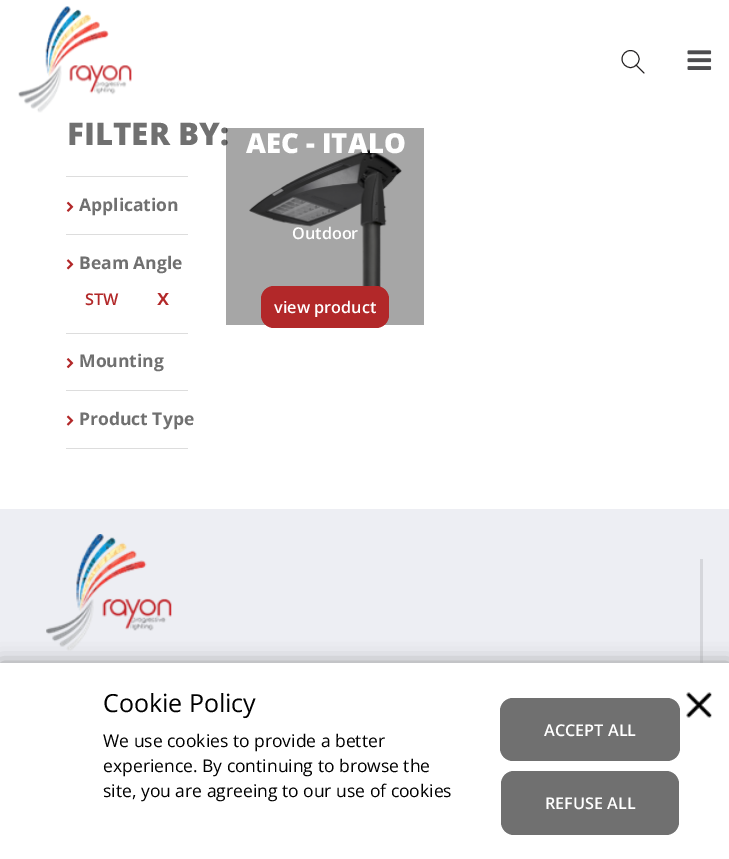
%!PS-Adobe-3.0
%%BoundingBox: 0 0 729 859
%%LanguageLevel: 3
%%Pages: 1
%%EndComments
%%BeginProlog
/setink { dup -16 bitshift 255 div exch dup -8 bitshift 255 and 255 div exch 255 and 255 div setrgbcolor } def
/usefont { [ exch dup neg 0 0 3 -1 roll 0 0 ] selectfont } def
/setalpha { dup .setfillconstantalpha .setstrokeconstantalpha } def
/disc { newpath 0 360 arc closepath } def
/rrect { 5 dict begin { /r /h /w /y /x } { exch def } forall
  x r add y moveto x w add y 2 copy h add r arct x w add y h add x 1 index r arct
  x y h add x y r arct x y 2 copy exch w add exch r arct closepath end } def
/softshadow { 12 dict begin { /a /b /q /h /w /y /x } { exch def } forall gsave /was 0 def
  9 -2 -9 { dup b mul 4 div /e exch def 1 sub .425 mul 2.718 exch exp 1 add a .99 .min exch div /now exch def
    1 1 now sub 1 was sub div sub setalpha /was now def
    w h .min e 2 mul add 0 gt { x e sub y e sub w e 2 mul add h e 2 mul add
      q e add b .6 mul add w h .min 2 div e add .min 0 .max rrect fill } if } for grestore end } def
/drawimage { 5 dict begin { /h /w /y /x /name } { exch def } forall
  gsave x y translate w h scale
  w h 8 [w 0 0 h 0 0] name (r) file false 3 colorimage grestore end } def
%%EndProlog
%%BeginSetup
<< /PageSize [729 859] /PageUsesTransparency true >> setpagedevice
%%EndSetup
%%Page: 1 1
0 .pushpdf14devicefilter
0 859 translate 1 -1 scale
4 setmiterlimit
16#FFFFFF setink
0 0 729 859 rectfill
(img1.raw) 18 6 114 107 drawimage
16#221F20 setink
0.9 setlinewidth
630.5 59 8.5 disc stroke
1 setlinecap
1 setlinejoin
644 73 moveto 636 65 lineto stroke
(img2.raw) 687 50 25 20 drawimage
/OpenSans-ExtraBold 31.25 usefont
16#707070 setink
67 145 moveto (FILTER BY:) show
16#DDDDDD setink
66 176 122 1 rectfill
(img3.raw) 66 201 8 11 drawimage
/OpenSans-Bold 17.5 usefont
16#707070 setink
79 211 moveto (Application) show
16#DDDDDD setink
66 234 122 1 rectfill
(img4.raw) 66 259 8 11 drawimage
16#707070 setink
79 269 moveto (Beam Angle) show
/OpenSans-SemiBold 16.25 usefont
16#B22829 setink
85 305 moveto (STW) show
/OpenSans-SemiBold 22 usefont
157 305 moveto (x) show
16#DDDDDD setink
66 333 122 1 rectfill
(img5.raw) 66 358 8 11 drawimage
/OpenSans-Bold 17.5 usefont
16#707070 setink
79 367 moveto (Mounting) show
16#DDDDDD setink
66 390 122 1 rectfill
66 448 122 1 rectfill
(img6.raw) 66 415 8 11 drawimage
16#707070 setink
79 425 moveto (Product Type) show
(img7.raw) 249 149 153 138 drawimage
0.35 setalpha
16#000000 setink
226 128 198 197 rectfill
/OpenSans-ExtraBold 27.5 usefont
1 setalpha
16#FFFFFF setink
246 153 moveto (AEC - ITALO) show
/OpenSans-SemiBold 16.25 usefont
292 239 moveto (Outdoor) show
16#B22829 setink
261 286 128 42 13 rrect fill
16#FFFFFF setink
274 313 moveto (view product) show
16#EDEEF3 setink
0 509 729 154 rectfill
(img8.raw) 46 534 126 117 drawimage
16#D5D6DB setink
700 559 3 104 rectfill
16#999999 setink
0 663 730 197 0 9.5 1 softshadow
16#FFFFFF setink
0 663 729 196 rectfill
/OpenSans-Regular 25 usefont
16#000000 setink
103 712 moveto (Cookie Policy) show
/OpenSans-Regular 17.5 usefont
[
    [(We use cookies to provide a better) 103 747]
    [(experience. By continuing to browse the) 103 772]
    [(site, you are agreeing to our use of cookies) 103 797]
] { aload pop moveto show } forall
16#707070 setink
500 698 180 63 13 rrect fill
/OpenSans-SemiBold 16.25 usefont
16#FFFFFF setink
544 736 moveto (ACCEPT ALL) show
16#707070 setink
501 771 178 64 13 rrect fill
16#FFFFFF setink
545 809 moveto (REFUSE ALL) show
(img9.raw) 686 692 26 26 drawimage
.poppdf14devicefilter showpage
%%EOF
